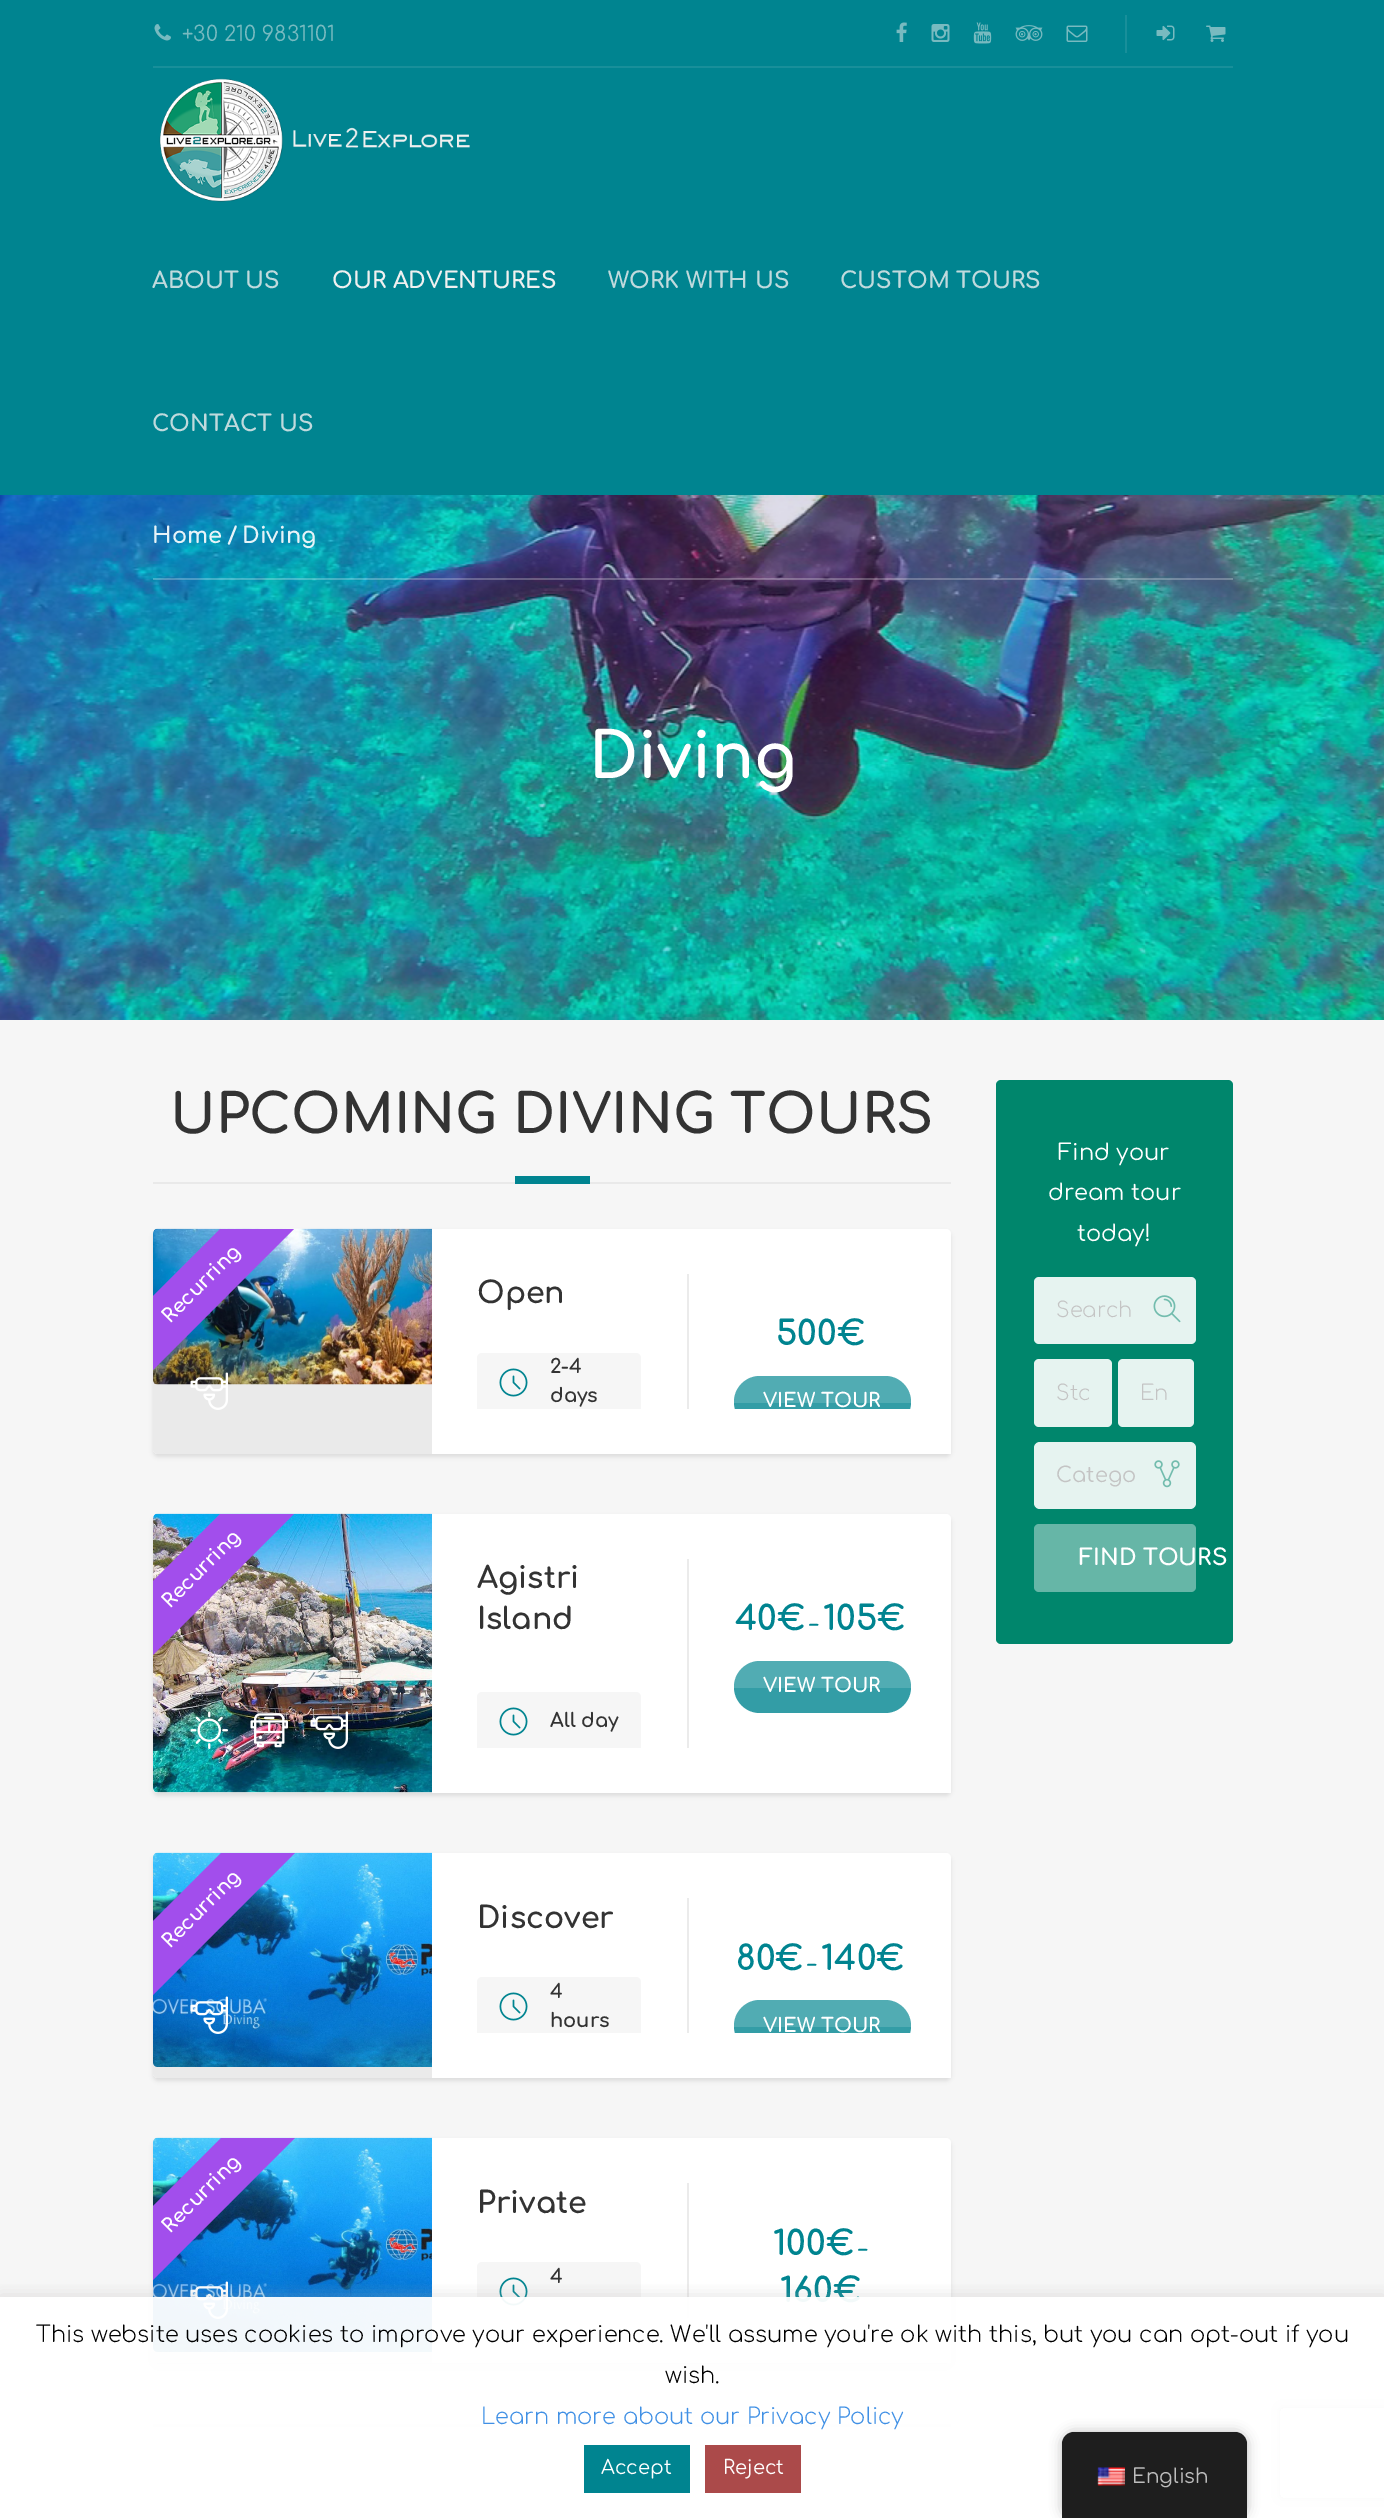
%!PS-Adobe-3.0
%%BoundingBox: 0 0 1384 2518
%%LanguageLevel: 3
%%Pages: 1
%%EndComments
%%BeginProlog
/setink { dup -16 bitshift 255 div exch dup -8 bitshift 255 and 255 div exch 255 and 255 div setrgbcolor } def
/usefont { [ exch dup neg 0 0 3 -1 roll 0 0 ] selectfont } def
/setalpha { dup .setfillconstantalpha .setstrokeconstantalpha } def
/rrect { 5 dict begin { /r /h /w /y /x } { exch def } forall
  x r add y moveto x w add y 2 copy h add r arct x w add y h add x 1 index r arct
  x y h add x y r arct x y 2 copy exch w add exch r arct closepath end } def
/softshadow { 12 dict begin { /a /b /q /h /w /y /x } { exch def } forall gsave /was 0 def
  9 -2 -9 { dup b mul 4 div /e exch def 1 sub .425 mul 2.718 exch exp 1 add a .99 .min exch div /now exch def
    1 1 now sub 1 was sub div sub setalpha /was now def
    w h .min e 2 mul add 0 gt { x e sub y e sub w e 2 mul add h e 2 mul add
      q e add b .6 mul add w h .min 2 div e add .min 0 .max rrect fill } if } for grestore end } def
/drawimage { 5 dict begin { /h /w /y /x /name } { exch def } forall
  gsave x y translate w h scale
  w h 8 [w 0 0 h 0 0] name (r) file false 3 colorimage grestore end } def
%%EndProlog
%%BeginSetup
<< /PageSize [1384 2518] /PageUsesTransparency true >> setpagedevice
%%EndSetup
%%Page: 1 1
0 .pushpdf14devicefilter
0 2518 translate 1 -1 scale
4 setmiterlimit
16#F6F6F6 setink
0 0 1384 2518 rectfill
16#008490 setink
0 0 1384 495 rectfill
(img1.raw) 154 24 17 17 drawimage
/Comfortaa-Regular 21 usefont
16#78BAC0 setink
182 41 moveto (+30 210 9831101) show
(img2.raw) 896 22 11 20 drawimage
(img3.raw) 931 24 19 18 drawimage
(img4.raw) 973 22 19 22 drawimage
(img5.raw) 1015 25 28 16 drawimage
(img6.raw) 1066 25 22 17 drawimage
16#188F9A setink
1125 15 2 38 rectfill
(img7.raw) 1156 25 19 16 drawimage
(img8.raw) 1206 25 20 17 drawimage
153 66 1080 2 rectfill
(img9.raw) 159 78 311 124 drawimage
/Comfortaa-Bold 22.5 usefont
16#C0DADD setink
152 288 moveto (ABOUT US) show
16#F0F0F0 setink
332 288 moveto (OUR ADVENTURES) show
16#C0DADD setink
[
    [(WORK WITH US) 608 288]
    [(CUSTOM TOURS) 840 288]
    [(CONTACT US) 152 431]
] { aload pop moveto show } forall
(img10.raw) 0 495 1384 525 drawimage
0.25 setalpha
16#FFFFFF setink
153 578 1080 2 rectfill
1 setalpha
16#E7F3F8 setink
[
    [(Home) 152 543]
    [(/) 227 543]
    [(Diving) 242 543]
] { aload pop moveto show } forall
/Comfortaa-Bold 63 usefont
16#FFFFFF setink
589 778 moveto (Diving) show
16#E9E9E9 setink
153 1182 798 2 rectfill
/Comfortaa-Bold 54 usefont
16#333333 setink
170 1133 moveto (UPCOMING DIVING TOURS) show
16#008490 setink
515 1176 75 8 rectfill
16#000000 setink
153 1232 798 225 5 2 0.09 softshadow
16#FFFFFF setink
153 1229 798 225 5 rrect fill
16#EAEAEA setink
158 1229 moveto 432 1229 lineto 432 1454 lineto 158 1454 lineto 155 1454 153 1452 153 1449 curveto 153 1234 lineto 153 1231 155 1229 158 1229 curveto closepath fill
(img11.raw) 153 1228 279 157 drawimage
16#A24EEC setink
294 1229 moveto 153 1370 lineto 153 1296 lineto 220 1229 lineto closepath fill
/Comfortaa-Bold 19.5 usefont
16#FFFFFF setink
gsave 170 1324 translate -45 rotate 0 0 moveto (Recurring) show grestore
(img12.raw) 190 1372 38 38 drawimage
/Comfortaa-Bold 30 usefont
16#333333 setink
477 1303 moveto (Open) show
16#EBEBEB setink
687 1274 2 135 rectfill
/Comfortaa-Bold 34 usefont
16#008490 setink
776 1345 moveto (500€) show
16#339DA6 setink
734 1376 177 52 26 rrect fill
/Comfortaa-Bold 19.5 usefont
16#FFFFFF setink
763 1407 moveto (VIEW TOUR) show
0.15 setalpha
760 1376 moveto 885 1376 lineto 899.5 1376 911 1387.5 911 1402 curveto 911 1403 lineto 734 1403 lineto 734 1402 lineto 734 1387.5 745.5 1376 760 1376 curveto closepath fill
1 setalpha
16#F6F6F6 setink
477 1353 164 60 5 rrect fill
(img13.raw) 499 1368 29 29 drawimage
16#333333 setink
550 1373 moveto (2-4) show
550 1402 moveto (days) show
16#FFFFFF setink
477 1409 474 45 rectfill
16#000000 setink
153 1517 798 279 5 2 0.09 softshadow
16#FFFFFF setink
153 1514 798 279 5 rrect fill
16#EAEAEA setink
158 1514 moveto 432 1514 lineto 432 1793 lineto 158 1793 lineto 155 1793 153 1791 153 1788 curveto 153 1519 lineto 153 1516 155 1514 158 1514 curveto closepath fill
(img14.raw) 153 1513 279 280 drawimage
16#A24EEC setink
294 1514 moveto 153 1655 lineto 153 1581 lineto 220 1514 lineto closepath fill
16#FFFFFF setink
gsave 170 1609 translate -45 rotate 0 0 moveto (Recurring) show grestore
(img15.raw) 190 1711 38 38 drawimage
(img16.raw) 250 1713 38 35 drawimage
(img17.raw) 310 1711 38 38 drawimage
/Comfortaa-Bold 30 usefont
16#333333 setink
477 1588 moveto (Agistri) show
477 1629 moveto (Island) show
16#EBEBEB setink
687 1559 2 189 rectfill
/Comfortaa-Bold 34 usefont
16#008490 setink
735 1630 moveto (40€) show
/Comfortaa-Bold 19 usefont
810 1630 moveto (–) show
/Comfortaa-Bold 34 usefont
823 1630 moveto (105€) show
16#339DA6 setink
734 1661 177 52 26 rrect fill
/Comfortaa-Bold 19.5 usefont
16#FFFFFF setink
763 1692 moveto (VIEW TOUR) show
0.15 setalpha
760 1661 moveto 885 1661 lineto 899.5 1661 911 1672.5 911 1687 curveto 911 1688 lineto 734 1688 lineto 734 1687 lineto 734 1672.5 745.5 1661 760 1661 curveto closepath fill
1 setalpha
16#F6F6F6 setink
477 1692 164 60 5 rrect fill
(img13.raw) 499 1707 29 29 drawimage
16#333333 setink
550 1727 moveto (All day) show
16#FFFFFF setink
477 1748 474 45 rectfill
16#000000 setink
153 1856 798 225 5 2 0.09 softshadow
16#FFFFFF setink
153 1853 798 225 5 rrect fill
16#EAEAEA setink
158 1853 moveto 432 1853 lineto 432 2078 lineto 158 2078 lineto 155 2078 153 2076 153 2073 curveto 153 1858 lineto 153 1855 155 1853 158 1853 curveto closepath fill
(img18.raw) 153 1852 279 215 drawimage
16#A24EEC setink
295 1853 moveto 153 1995 lineto 153 1921 lineto 221 1853 lineto closepath fill
16#FFFFFF setink
gsave 170 1949 translate -45 rotate 0 0 moveto (Recurring) show grestore
(img19.raw) 190 1996 38 38 drawimage
/Comfortaa-Bold 30 usefont
16#333333 setink
477 1928 moveto (Discover) show
16#EBEBEB setink
687 1898 2 135 rectfill
/Comfortaa-Bold 34 usefont
16#008490 setink
736 1970 moveto (80€) show
/Comfortaa-Bold 19 usefont
808 1970 moveto (–) show
/Comfortaa-Bold 34 usefont
821 1970 moveto (140€) show
16#339DA6 setink
734 2000 177 52 26 rrect fill
/Comfortaa-Bold 19.5 usefont
16#FFFFFF setink
763 2032 moveto (VIEW TOUR) show
0.15 setalpha
760 2000 moveto 885 2000 lineto 899.5 2000 911 2011.5 911 2026 curveto 911 2027 lineto 734 2027 lineto 734 2026 lineto 734 2011.5 745.5 2000 760 2000 curveto closepath fill
1 setalpha
16#F6F6F6 setink
477 1977 164 60 5 rrect fill
(img13.raw) 499 1992 29 29 drawimage
16#333333 setink
550 1998 moveto (4) show
550 2027 moveto (hours) show
16#FFFFFF setink
477 2033 474 45 rectfill
16#000000 setink
153 2141 798 225 5 2 0.09 softshadow
16#FFFFFF setink
153 2138 798 225 5 rrect fill
16#EAEAEA setink
158 2138 moveto 432 2138 lineto 432 2363 lineto 158 2363 lineto 155 2363 153 2361 153 2358 curveto 153 2143 lineto 153 2140 155 2138 158 2138 curveto closepath fill
(img18.raw) 153 2137 279 215 drawimage
16#A24EEC setink
295 2138 moveto 153 2280 lineto 153 2206 lineto 221 2138 lineto closepath fill
16#FFFFFF setink
gsave 170 2234 translate -45 rotate 0 0 moveto (Recurring) show grestore
(img19.raw) 190 2281 38 38 drawimage
/Comfortaa-Bold 30 usefont
16#333333 setink
477 2213 moveto (Private) show
16#EBEBEB setink
687 2183 2 135 rectfill
/Comfortaa-Bold 34 usefont
16#008490 setink
773 2255 moveto (100€) show
/Comfortaa-Bold 19 usefont
859 2255 moveto (–) show
/Comfortaa-Bold 34 usefont
780 2302 moveto (160€) show
16#F6F6F6 setink
477 2262 164 60 5 rrect fill
/Comfortaa-Bold 19.5 usefont
16#333333 setink
550 2283 moveto (4) show
(img13.raw) 499 2277 29 29 drawimage
16#FFFFFF setink
477 2318 474 45 rectfill
16#EBEBEB setink
153 2424 798 3 rectfill
16#00866C setink
996 1080 237 564 5 rrect fill
/Comfortaa-Regular 22.5 usefont
16#FFFFFF setink
[
    [(Find your) 1058 1160]
    [(dream tour) 1048 1200]
    [(today!) 1077 1241]
] { aload pop moveto show } forall
16#E6F3F0 setink
1034 1277 162 67 5 rrect fill
/Comfortaa-Light 21 usefont
16#C4C4C4 setink
1056 1317 moveto (Search) show
(img20.raw) 1153 1295 28 28 drawimage
16#E6F3F0 setink
1034 1359 78 68 5 rrect fill
gsave
1056 1382 33 22 rectclip
16#C4C4C4 setink
1056 1400 moveto (Sta) show
grestore
1118 1359 76 68 5 rrect fill
16#C4C4C4 setink
1140 1400 moveto (En) show
16#E6F3F0 setink
1034 1442 162 67 6 rrect fill
/Comfortaa-Regular 21 usefont
16#C4C4C4 setink
1056 1482 moveto (Catego) show
(img21.raw) 1154 1460 26 28 drawimage
16#66B6A7 setink
1034 1524 162 68 5 rrect fill
/Comfortaa-Bold 22.5 usefont
16#FFFFFF setink
1079 1565 moveto (FIND TOURS) show
gsave
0 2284 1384 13 rectclip
16#ACABAB setink
0 2295 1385 222 0 7.5 0.3 softshadow
grestore
gsave
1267 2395 moveto 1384 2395 lineto 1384 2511 lineto 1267 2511 lineto closepath 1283 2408 moveto 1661 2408 lineto 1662.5 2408 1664 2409.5 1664 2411 curveto 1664 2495 lineto 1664 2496.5 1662.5 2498 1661 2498 curveto 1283 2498 lineto 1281.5 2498 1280 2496.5 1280 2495 curveto 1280 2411 lineto 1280 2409.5 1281.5 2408 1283 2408 curveto closepath eoclip newpath
16#808080 setink
1280 2408 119 90 3 4 1 softshadow
grestore
0.95 setalpha
0 2297 1384 221 rectfill
/Comfortaa-Light 22.5 usefont
1 setalpha
16#000000 setink
36 2342 moveto (This website uses cookies to improve your experience. We'll assume you're ok with this, but you can opt-out if you) show
665 2383 moveto (wish.) show
16#4090E5 setink
481 2424 moveto (Learn more about our Privacy Policy) show
16#008490 setink
584 2445 106 48 rectfill
/Comfortaa-Regular 19.5 usefont
16#FFFFFF setink
601 2474 moveto (Accept) show
16#AB4A4A setink
705 2445 96 48 rectfill
16#FFFFFF setink
723 2474 moveto (Reject) show
16#000000 setink
1062 2432 185 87 12 6 0.25 softshadow
16#1E1E1E setink
1074 2432 moveto 1235 2432 lineto 1241.5 2432 1247 2437.5 1247 2444 curveto 1247 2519 lineto 1062 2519 lineto 1062 2444 lineto 1062 2437.5 1067.5 2432 1074 2432 curveto closepath fill
(img22.raw) 1097 2467 28 19 drawimage
/Comfortaa-Regular 20 usefont
16#BDBDBD setink
1132 2483 moveto (English) show
.poppdf14devicefilter showpage
%%EOF
